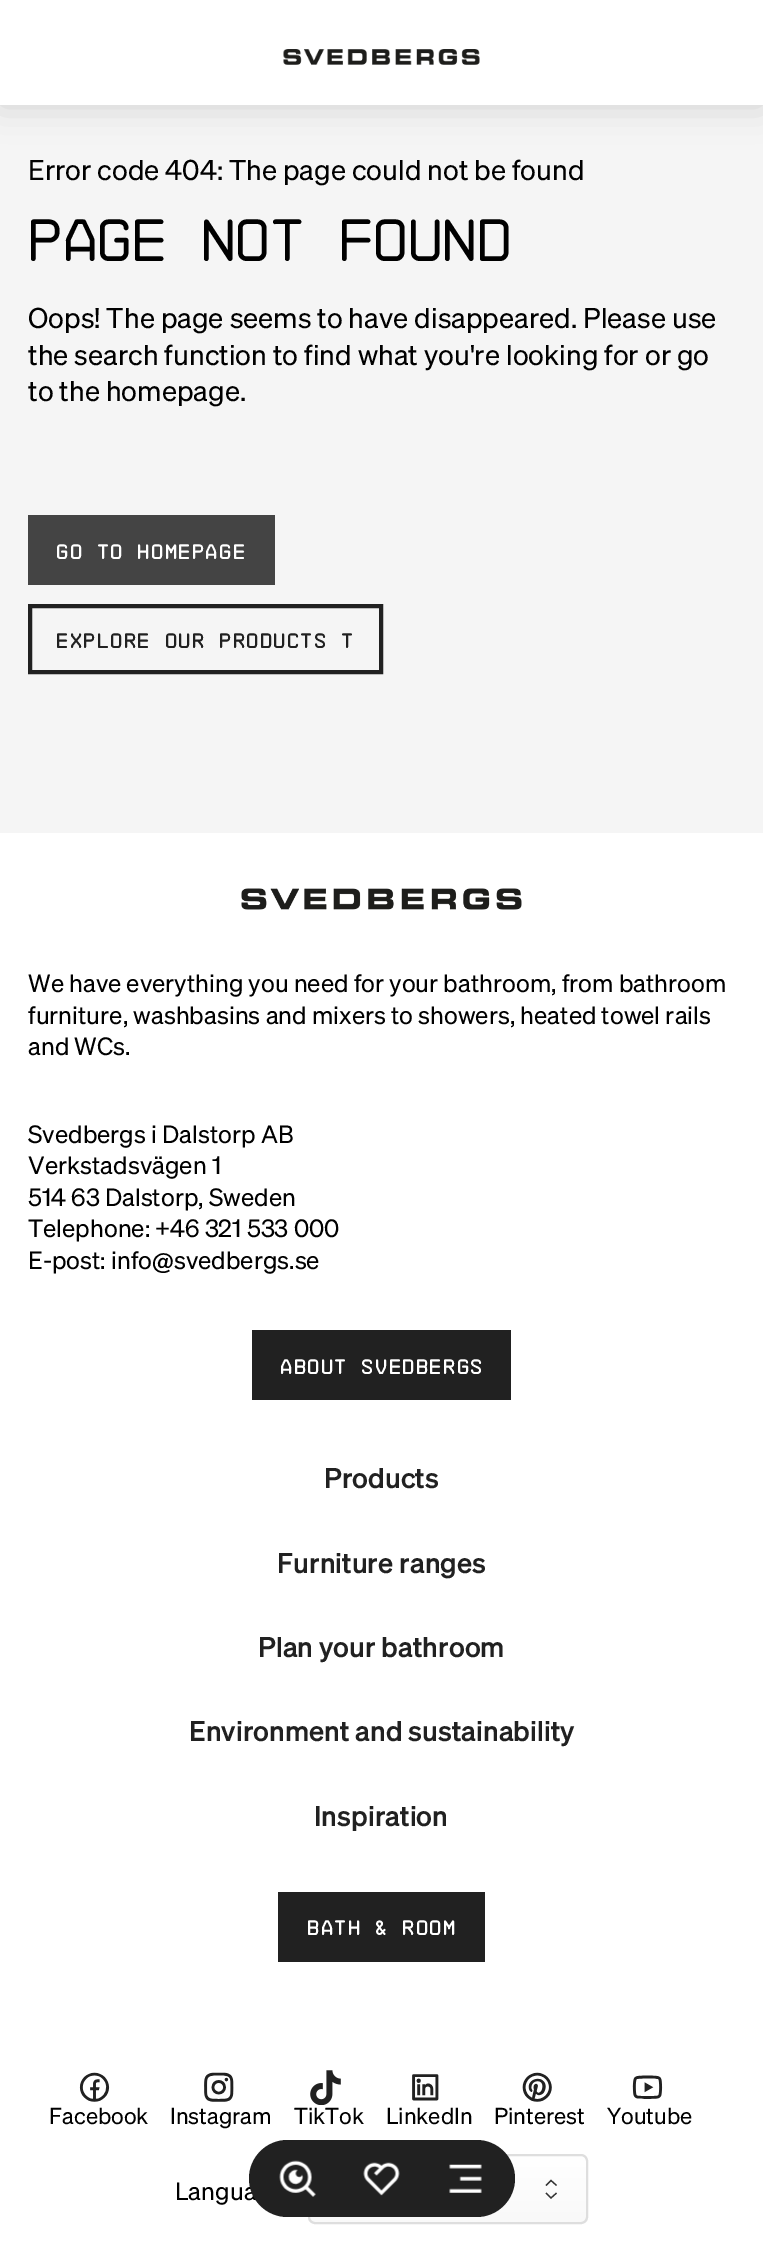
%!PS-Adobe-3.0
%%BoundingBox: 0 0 763 2265
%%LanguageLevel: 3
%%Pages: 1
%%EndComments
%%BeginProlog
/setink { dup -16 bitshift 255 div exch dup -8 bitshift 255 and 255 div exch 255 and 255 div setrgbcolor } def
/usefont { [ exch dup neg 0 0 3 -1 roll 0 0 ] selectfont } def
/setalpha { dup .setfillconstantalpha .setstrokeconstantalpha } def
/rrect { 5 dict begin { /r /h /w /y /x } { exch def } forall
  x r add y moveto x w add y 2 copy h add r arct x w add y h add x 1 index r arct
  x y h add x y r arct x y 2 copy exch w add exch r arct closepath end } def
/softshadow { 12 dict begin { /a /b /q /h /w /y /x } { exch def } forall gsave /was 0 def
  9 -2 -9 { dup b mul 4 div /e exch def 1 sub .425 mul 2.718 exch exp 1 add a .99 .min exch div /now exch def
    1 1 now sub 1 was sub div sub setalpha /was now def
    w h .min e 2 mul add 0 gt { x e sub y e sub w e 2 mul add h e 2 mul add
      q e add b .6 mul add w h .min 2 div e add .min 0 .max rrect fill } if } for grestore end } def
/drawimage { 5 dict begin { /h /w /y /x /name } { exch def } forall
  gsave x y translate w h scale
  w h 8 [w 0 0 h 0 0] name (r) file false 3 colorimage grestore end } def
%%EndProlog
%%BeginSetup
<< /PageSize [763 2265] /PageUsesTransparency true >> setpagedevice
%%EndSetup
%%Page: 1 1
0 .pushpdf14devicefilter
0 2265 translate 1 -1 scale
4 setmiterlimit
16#FFFFFF setink
0 0 763 2265 rectfill
16#F5F5F5 setink
0 105 763 728 rectfill
16#000000 setink
0 0 763 105 0 17.5 0.15 softshadow
16#FFFFFF setink
0 0 763 105 rectfill
(img1.raw) 283 49 197 16 drawimage
/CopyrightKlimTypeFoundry-Regular 24.5 usefont
16#000000 setink
175 2200 moveto (Langua) show
gsave
308 2154 280 70 7 rrect clip newpath
gsave 308 2156 moveto 588 2156 lineto 588 2223 lineto 308 2223 lineto closepath clip newpath
<< /ShadingType 2 /ColorSpace /DeviceRGB /Coords [448 2156 448 2223] /Extend [true true] /Function << /FunctionType 2 /Domain [0 1] /C0 [1 1 1] /C1 [0.976 0.976 0.976] /N 1 >> >> shfill grestore
grestore
16#333333 setink
1.2 setlinewidth
2 setlinecap
546.5 2185 moveto 551 2180.5 lineto 556 2185 lineto 556 2193.5 moveto 551 2198 lineto 546.5 2193.5 lineto stroke
16#DEDEDE setink
2 setlinewidth
0 setlinecap
309 2155 278 68 6 rrect stroke
16#212121 setink
249 2140 266 77 38.5 rrect fill
(img2.raw) 279 2160 37 37 drawimage
(img3.raw) 363 2162 37 34 drawimage
(img4.raw) 449 2164 33 29 drawimage
/CopyrightKlimTypeFoundry-Regular 28 usefont
16#000000 setink
28 180 moveto (Error code 404: The page could not be found) show
/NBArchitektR-Regular 59.5 usefont
28 261 moveto (Page not found) show
/CopyrightKlimTypeFoundry-Regular 28 usefont
[
    [(Oops! The page seems to have disappeared. Please use) 28 328]
    [(the search function to find what you're looking for or go) 28 365]
    [(to the homepage.) 28 401]
] { aload pop moveto show } forall
16#444444 setink
28 515 247 70 rectfill
/NBArchitektR-Bold 21 usefont
16#FFFFFF setink
56 559 moveto 1.4 0 (GO TO HOMEPAGE) ashow
16#212121 setink
4 setlinewidth
30 606 351 66 rectstroke
56 648 moveto 1.4 0 (EXPLORE OUR PRODUCTS T) ashow
(img5.raw) 241 888 281 22 drawimage
/CopyrightKlimTypeFoundry-Regular 24.5 usefont
16#000000 setink
[
    [(We have everything you need for your bathroom, from bathroom) 28 992]
    [(furniture, washbasins and mixers to showers, heated towel rails) 28 1024]
    [(and WCs.) 28 1055]
    [(Svedbergs i Dalstorp AB) 28 1143]
    [(Verkstadsvägen 1) 28 1174]
    [(514 63 Dalstorp, Sweden) 28 1206]
    [(Telephone: +46 321 533 000) 28 1237]
    [(E-post: info@svedbergs.se) 28 1269]
] { aload pop moveto show } forall
16#212121 setink
252 1330 259 70 rectfill
/NBArchitektR-Bold 21 usefont
16#FFFFFF setink
280 1374 moveto 1.4 0 (ABOUT SVEDBERGS) ashow
/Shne-Medium 28 usefont
16#212121 setink
[
    [(Products) 324 1488]
    [(Furniture ranges) 277 1573]
    [(Plan your bathroom) 258 1657]
    [(Environment and sustainability) 189 1741]
    [(Inspiration) 314 1826]
] { aload pop moveto show } forall
278 1892 207 70 rectfill
/NBArchitektR-Bold 21 usefont
16#FFFFFF setink
307 1935 moveto 1.4 0 (BATH & ROOM) ashow
(img6.raw) 79 2072 31 30 drawimage
/CopyrightKlimTypeFoundry-Regular 22.5 usefont
16#000000 setink
49 2124 moveto (Facebook) show
(img7.raw) 204 2072 30 30 drawimage
170 2124 moveto (Instagram) show
(img8.raw) 310 2070 31 35 drawimage
294 2124 moveto (TikTok) show
(img9.raw) 412 2074 27 27 drawimage
386 2124 moveto (LinkedIn) show
(img10.raw) 522 2072 30 30 drawimage
494 2124 moveto (Pinterest) show
(img11.raw) 632 2075 31 24 drawimage
607 2124 moveto (Youtube) show
.poppdf14devicefilter showpage
%%EOF
